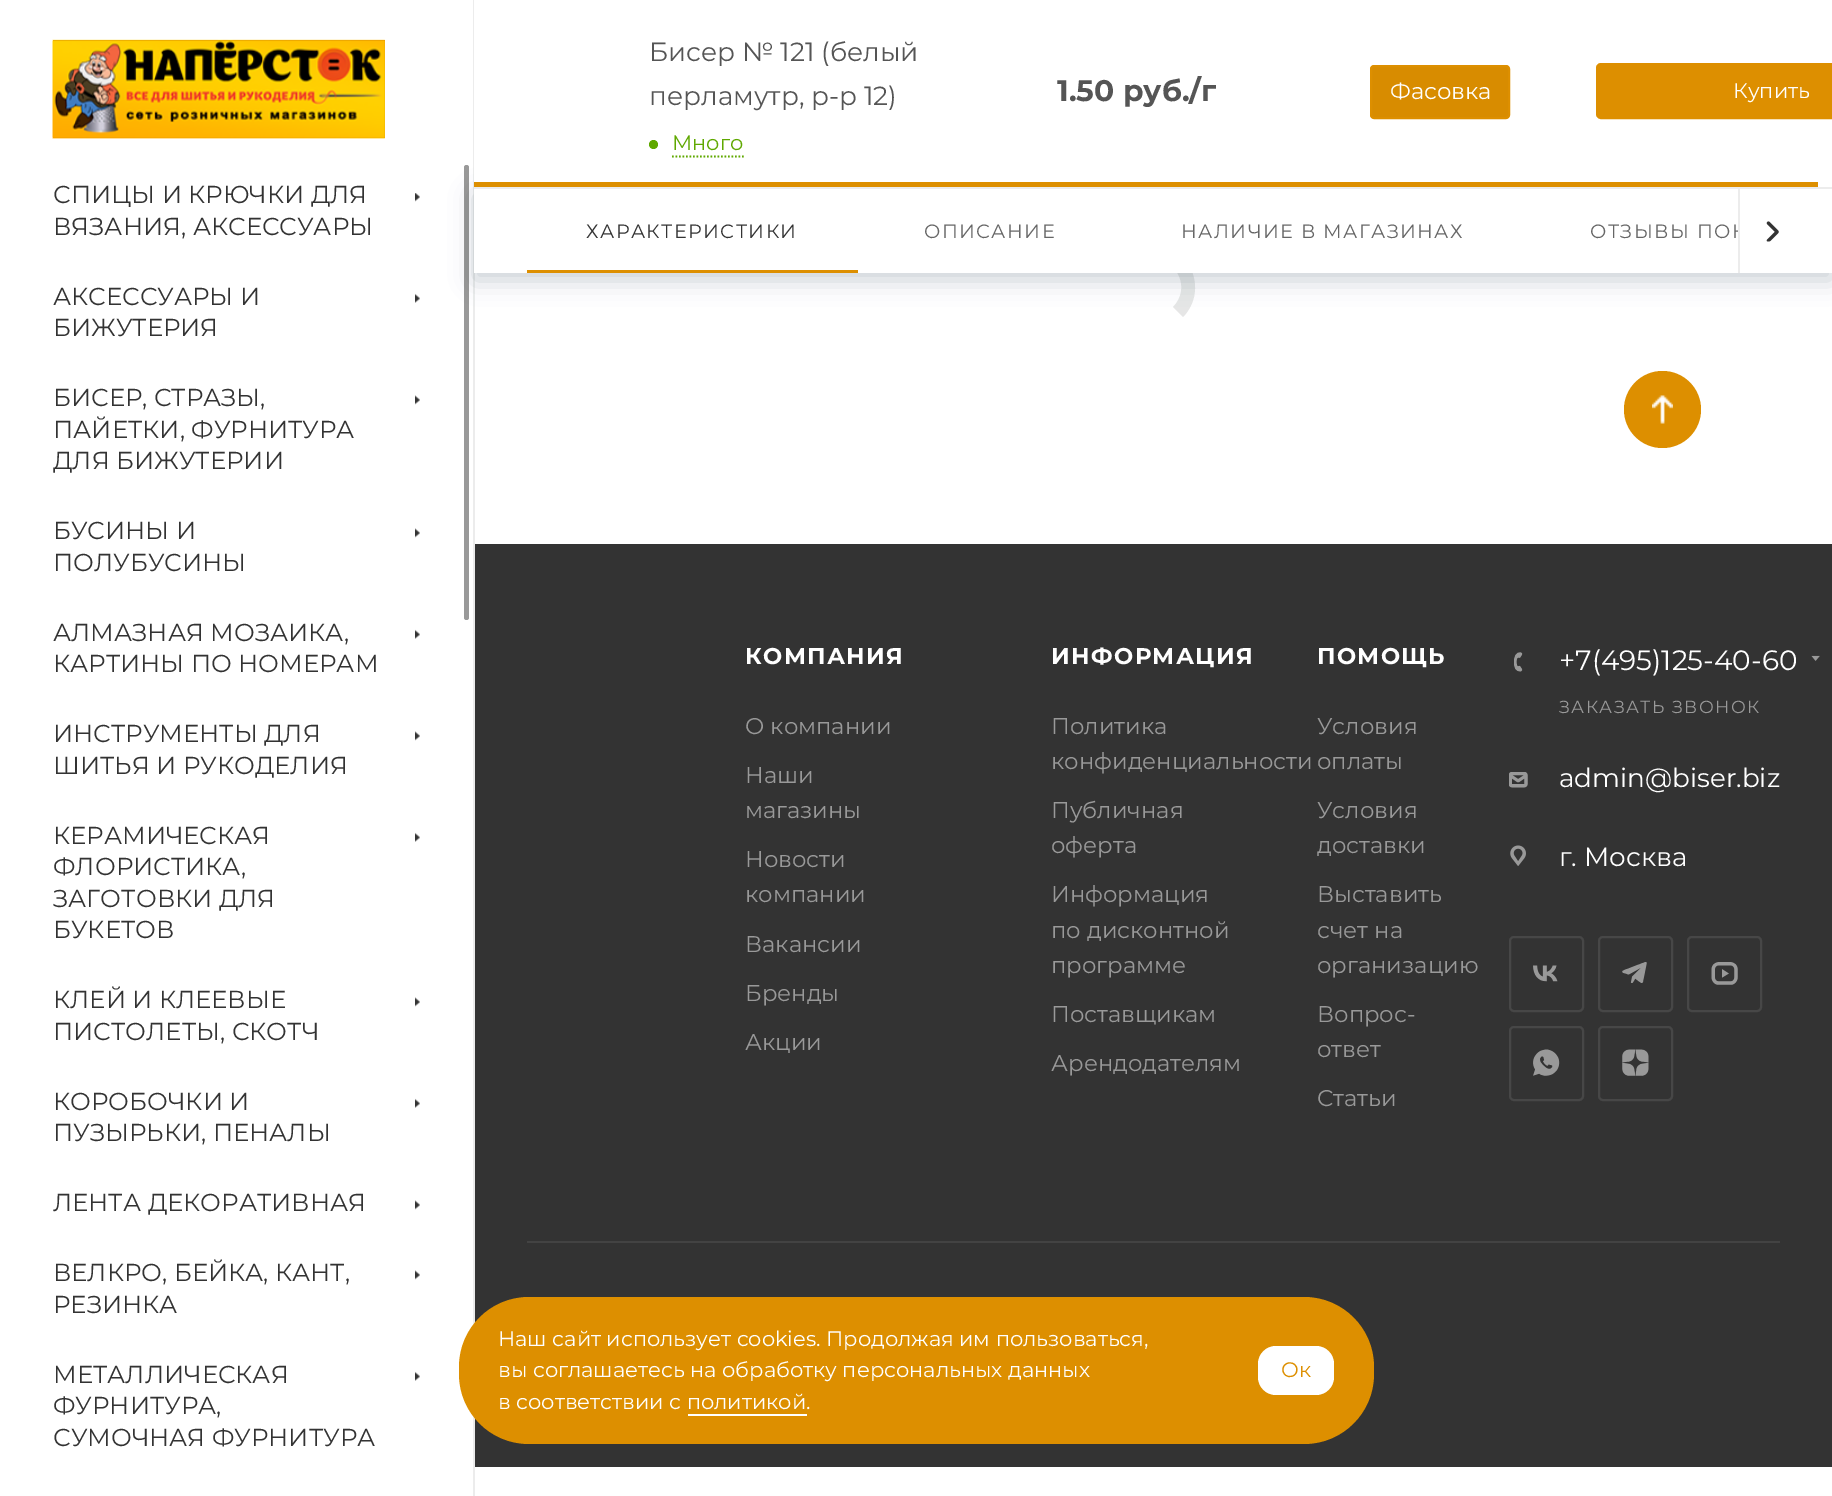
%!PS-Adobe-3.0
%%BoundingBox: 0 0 1832 1496
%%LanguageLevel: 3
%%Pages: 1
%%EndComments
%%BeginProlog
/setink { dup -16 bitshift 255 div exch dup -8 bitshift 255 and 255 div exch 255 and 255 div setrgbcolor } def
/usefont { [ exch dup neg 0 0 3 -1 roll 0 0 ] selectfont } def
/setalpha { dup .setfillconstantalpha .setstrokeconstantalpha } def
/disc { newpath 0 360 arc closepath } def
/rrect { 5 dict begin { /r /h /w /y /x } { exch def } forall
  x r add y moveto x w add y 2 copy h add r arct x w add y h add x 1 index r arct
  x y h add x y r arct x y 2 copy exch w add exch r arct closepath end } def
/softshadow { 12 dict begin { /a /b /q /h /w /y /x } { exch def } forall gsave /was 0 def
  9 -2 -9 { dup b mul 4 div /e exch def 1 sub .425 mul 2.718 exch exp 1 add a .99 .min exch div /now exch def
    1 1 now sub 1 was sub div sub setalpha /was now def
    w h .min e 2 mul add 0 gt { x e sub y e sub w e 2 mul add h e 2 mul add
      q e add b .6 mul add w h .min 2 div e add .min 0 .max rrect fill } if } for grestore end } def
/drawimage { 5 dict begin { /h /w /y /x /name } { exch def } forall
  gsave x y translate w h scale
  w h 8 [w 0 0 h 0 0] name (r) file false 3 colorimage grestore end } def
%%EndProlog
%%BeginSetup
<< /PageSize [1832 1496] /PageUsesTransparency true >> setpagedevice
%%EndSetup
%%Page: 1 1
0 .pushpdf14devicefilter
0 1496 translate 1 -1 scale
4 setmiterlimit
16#FFFFFF setink
0 0 1832 1496 rectfill
16#ECECEC setink
473 0 2 1496 rectfill
16#999999 setink
464 165 5 455 2.5 rrect fill
16#E6E6E6 setink
1153 245 moveto 1190 245 1209 290 1183 317 curveto 1173 307 lineto 1191 289 1178 259 1153 259 curveto closepath fill
16#20364A setink
474 194 1358 86 0 12 0.23 softshadow
16#FFFFFF setink
474 0 1358 187 rectfill
/Montserrat-Regular 26.25 usefont
16#555555 setink
649 61 moveto (Бисер № 121 \(белый) show
649 105 moveto (перламутр, р-р 12\)) show
16#5FA800 setink
653.5 144.5 4.5 disc fill
/Montserrat-Regular 21 usefont
672 150 moveto (Много) show
1.8 setlinewidth
[1.75 1.75] 0 setdash
672 156.5 moveto 744 156.5 lineto stroke
/Montserrat-Bold 29.75 usefont
16#555555 setink
1057 101 moveto (1.50 руб./г) show
16#D88C00 setink
1371 66 138 52 3 rrect gsave fill grestore
16#DD8F00 setink
2 setlinewidth
[] 0 setdash
stroke
/Montserrat-Regular 22.75 usefont
16#FFFFFF setink
1390 99 moveto (Фасовка) show
16#DD8F00 setink
1597 64 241 54 4 rrect gsave fill grestore
stroke
/Montserrat-Regular 21 usefont
16#FFFFFF setink
1733 98 moveto (Купить) show
16#DD8F00 setink
474 182 1344 5 rectfill
16#D88C00 setink
53 40 332 98 rectfill
(img1.raw) 52 39 333 100 drawimage
/Montserrat-Regular 24.5 usefont
16#333333 setink
53 203 moveto (СПИЦЫ И КРЮЧКИ ДЛЯ) show
(img2.raw) 415 193 5 9 drawimage
53 235 moveto (ВЯЗАНИЯ, АКСЕССУАРЫ) show
53 305 moveto (АКСЕССУАРЫ И) show
(img3.raw) 415 293 5 10 drawimage
53 336 moveto (БИЖУТЕРИЯ) show
53 406 moveto (БИСЕР, СТРАЗЫ,) show
(img4.raw) 415 395 5 10 drawimage
[
    [(ПАЙЕТКИ, ФУРНИТУРА) 53 438]
    [(ДЛЯ БИЖУТЕРИИ) 53 469]
    [(БУСИНЫ И) 53 539]
] { aload pop moveto show } forall
(img4.raw) 415 528 5 10 drawimage
53 571 moveto (ПОЛУБУСИНЫ) show
53 641 moveto (АЛМАЗНАЯ МОЗАИКА,) show
(img3.raw) 415 629 5 10 drawimage
53 672 moveto (КАРТИНЫ ПО НОМЕРАМ) show
53 742 moveto (ИНСТРУМЕНТЫ ДЛЯ) show
(img4.raw) 415 731 5 10 drawimage
53 774 moveto (ШИТЬЯ И РУКОДЕЛИЯ) show
53 844 moveto (КЕРАМИЧЕСКАЯ) show
(img3.raw) 415 832 5 10 drawimage
[
    [(ФЛОРИСТИКА,) 53 875]
    [(ЗАГОТОВКИ ДЛЯ) 53 907]
    [(БУКЕТОВ) 53 938]
    [(КЛЕЙ И КЛЕЕВЫЕ) 53 1008]
] { aload pop moveto show } forall
(img4.raw) 415 997 5 10 drawimage
53 1040 moveto (ПИСТОЛЕТЫ, СКОТЧ) show
53 1110 moveto (КОРОБОЧКИ И) show
(img3.raw) 415 1098 5 10 drawimage
53 1141 moveto (ПУЗЫРЬКИ, ПЕНАЛЫ) show
53 1211 moveto (ЛЕНТА ДЕКОРАТИВНАЯ) show
(img4.raw) 415 1200 5 10 drawimage
53 1281 moveto (ВЕЛКРО, БЕЙКА, КАНТ,) show
(img4.raw) 415 1270 5 10 drawimage
53 1313 moveto (РЕЗИНКА) show
53 1383 moveto (МЕТАЛЛИЧЕСКАЯ) show
(img3.raw) 415 1371 5 10 drawimage
53 1414 moveto (ФУРНИТУРА,) show
53 1446 moveto (СУМОЧНАЯ ФУРНИТУРА) show
16#FFFFFF setink
474 189 1358 84 rectfill
16#ECECEC setink
474 187 1358 2 rectfill
/Montserrat-Regular 19.25 usefont
16#333333 setink
586 238 moveto 1.4 0 (ХАРАКТЕРИСТИКИ) ashow
16#DD8F00 setink
527 270 331 3 rectfill
16#666666 setink
924 238 moveto 1.4 0 (ОПИСАНИЕ) ashow
1181 238 moveto 1.4 0 (НАЛИЧИЕ В МАГАЗИНАХ) ashow
1590 238 moveto 1.4 0 (ОТЗЫВЫ ПОК) ashow
16#FFFFFF setink
1740 224 5 14 rectfill
16#ECECEC setink
1738 189 2 84 rectfill
(img5.raw) 1766 221 13 21 drawimage
16#DD8F00 setink
1662.5 409.5 38.5 disc fill
(img6.raw) 1652 395 21 29 drawimage
16#333333 setink
475 544 1357 923 rectfill
/Montserrat-Bold 22.75 usefont
16#FFFFFF setink
745 664 moveto 1.4 0 (КОМПАНИЯ) ashow
/Montserrat-Regular 22.75 usefont
16#999999 setink
[
    [(О компании) 745 734]
    [(Наши) 745 783]
    [(магазины) 745 818]
    [(Новости) 745 867]
    [(компании) 745 902]
    [(Вакансии) 745 952]
    [(Бренды) 745 1001]
    [(Акции) 745 1050]
] { aload pop moveto show } forall
/Montserrat-Bold 22.75 usefont
16#FFFFFF setink
1051 664 moveto 1.4 0 (ИНФОРМАЦИЯ) ashow
/Montserrat-Regular 22.75 usefont
16#999999 setink
[
    [(Политика) 1051 734]
    [(конфиденциальности) 1051 769]
    [(Публичная) 1051 818]
    [(оферта) 1051 853]
    [(Информация) 1051 902]
    [(по дисконтной) 1051 938]
    [(программе) 1051 973]
    [(Поставщикам) 1051 1022]
    [(Арендодателям) 1051 1071]
] { aload pop moveto show } forall
/Montserrat-Bold 22.75 usefont
16#FFFFFF setink
1317 664 moveto 1.4 0 (ПОМОЩЬ) ashow
/Montserrat-Regular 22.75 usefont
16#999999 setink
[
    [(Условия) 1317 734]
    [(оплаты) 1317 769]
    [(Условия) 1317 818]
    [(доставки) 1317 853]
    [(Выставить) 1317 902]
    [(счет на) 1317 938]
    [(организацию) 1317 973]
    [(Вопрос-) 1317 1022]
    [(ответ) 1317 1057]
    [(Статьи) 1317 1106]
] { aload pop moveto show } forall
(img7.raw) 1514 652 9 20 drawimage
/Montserrat-Regular 28 usefont
16#FFFFFF setink
1559 670 moveto (+7\(495\)125-40-60) show
(img8.raw) 1811 655 9 6 drawimage
/Montserrat-Regular 17.5 usefont
16#999999 setink
1559 713 moveto 1.4 0 (ЗАКАЗАТЬ ЗВОНОК) ashow
(img9.raw) 1509 772 19 16 drawimage
/Montserrat-Regular 26.25 usefont
16#FFFFFF setink
1559 787 moveto (admin@biser.biz) show
(img10.raw) 1510 845 16 21 drawimage
1559 866 moveto (г. Москва) show
(img11.raw) 1533 965 25 17 drawimage
16#474747 setink
1510 937 73 74 4 rrect stroke
(img12.raw) 1622 962 25 21 drawimage
1599 937 73 74 4 rrect stroke
(img13.raw) 1711 962 27 23 drawimage
1688 937 73 74 4 rrect stroke
(img14.raw) 1533 1049 27 27 drawimage
1510 1027 73 73 4 rrect stroke
(img15.raw) 1622 1049 27 27 drawimage
1599 1027 73 73 4 rrect stroke
16#434343 setink
527 1241 1253 2 rectfill
16#DD8F00 setink
459 1297 915 147 70 rrect fill
/Montserrat-Regular 21 usefont
16#FFFFFF setink
[
    [(Наш сайт использует cookies. Продолжая им пользоваться,) 498 1346]
    [(вы соглашаетесь на обработку персональных данных) 498 1377]
    [(в соответствии с политикой.) 498 1409]
] { aload pop moveto show } forall
688 1414 119 2 rectfill
1258 1346 76 49 18 rrect fill
16#DD8F00 setink
1281 1377 moveto (Ок) show
.poppdf14devicefilter showpage
%%EOF
